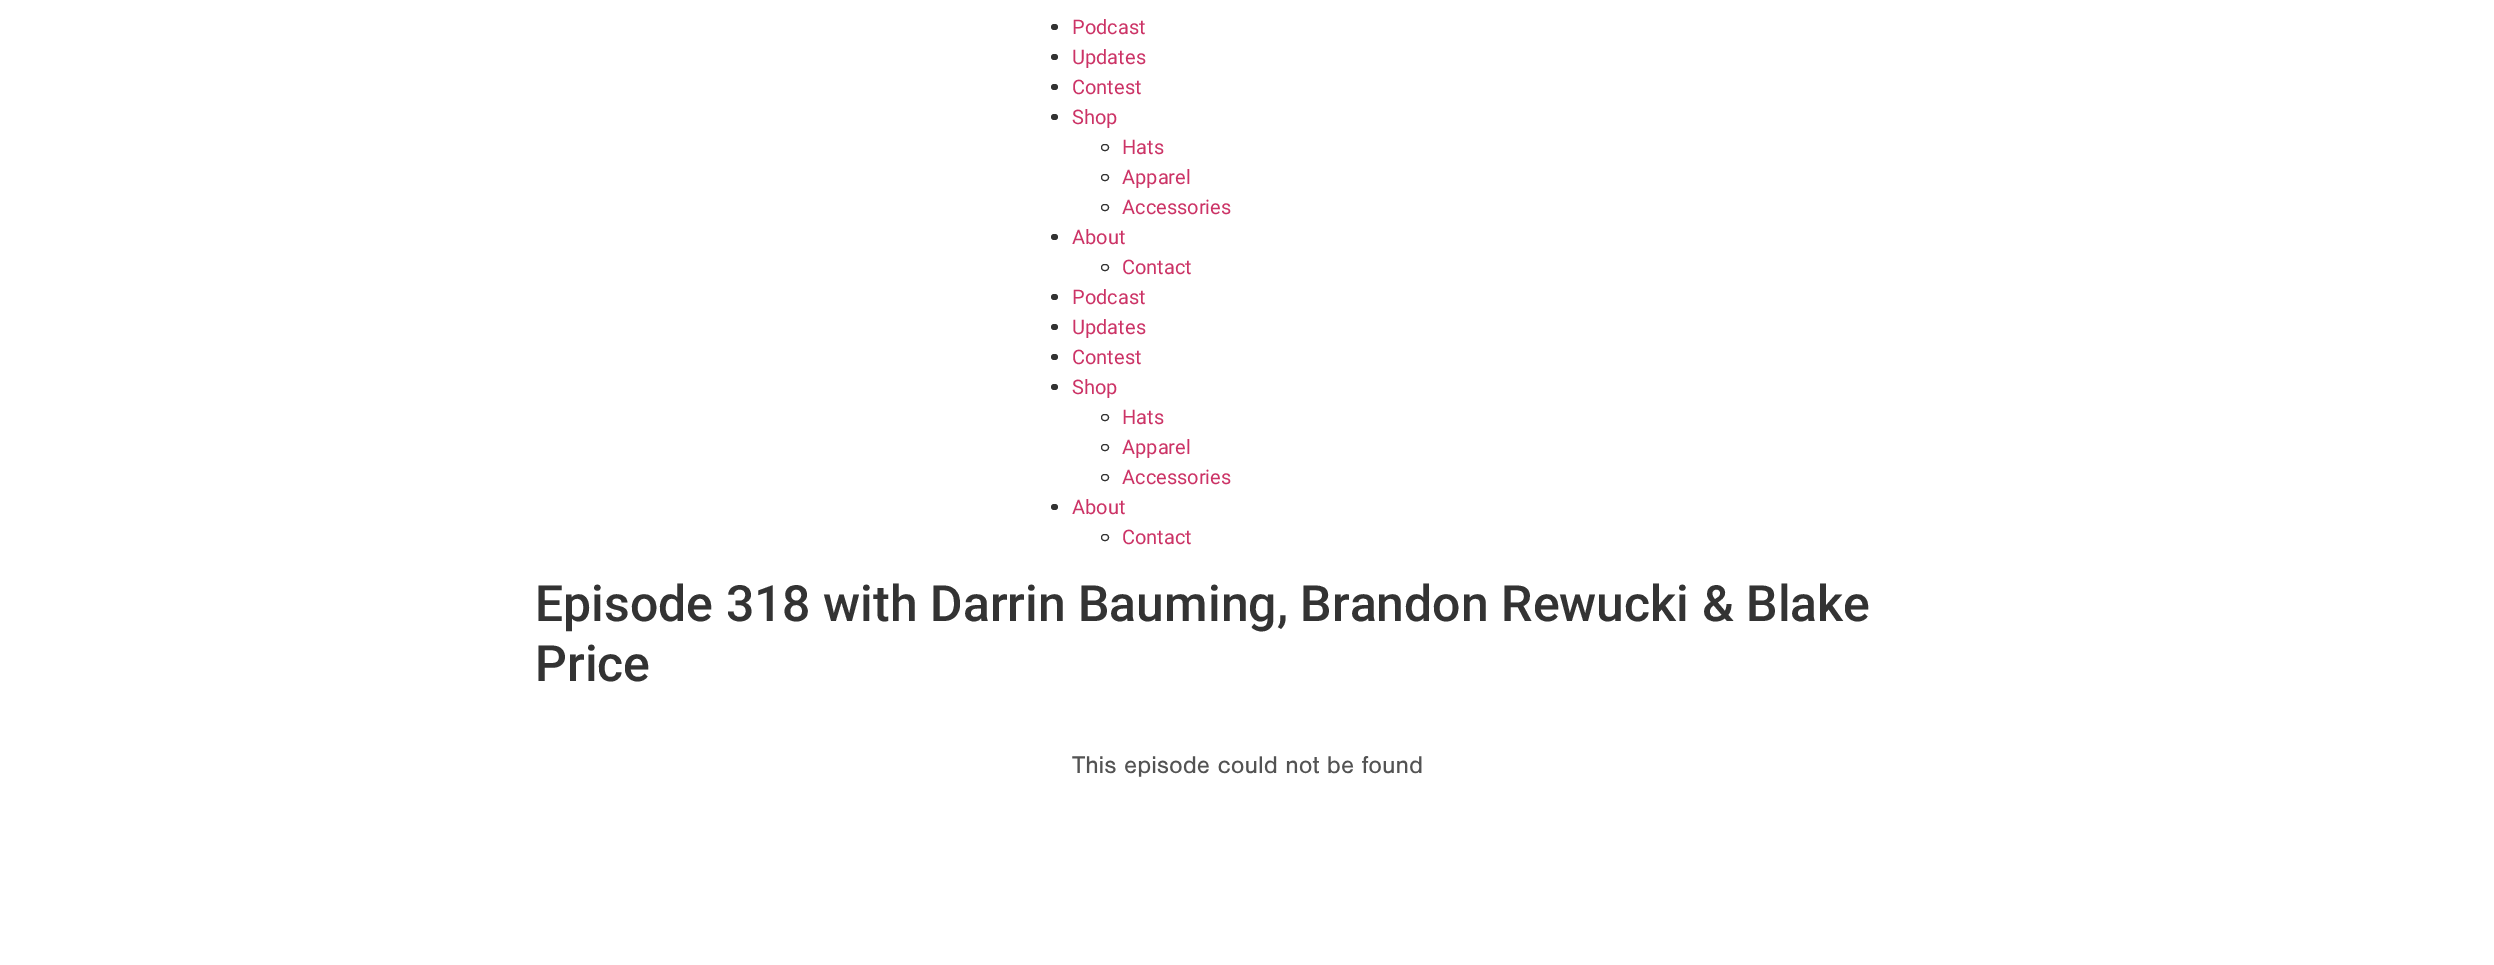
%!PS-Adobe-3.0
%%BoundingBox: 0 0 2494 965
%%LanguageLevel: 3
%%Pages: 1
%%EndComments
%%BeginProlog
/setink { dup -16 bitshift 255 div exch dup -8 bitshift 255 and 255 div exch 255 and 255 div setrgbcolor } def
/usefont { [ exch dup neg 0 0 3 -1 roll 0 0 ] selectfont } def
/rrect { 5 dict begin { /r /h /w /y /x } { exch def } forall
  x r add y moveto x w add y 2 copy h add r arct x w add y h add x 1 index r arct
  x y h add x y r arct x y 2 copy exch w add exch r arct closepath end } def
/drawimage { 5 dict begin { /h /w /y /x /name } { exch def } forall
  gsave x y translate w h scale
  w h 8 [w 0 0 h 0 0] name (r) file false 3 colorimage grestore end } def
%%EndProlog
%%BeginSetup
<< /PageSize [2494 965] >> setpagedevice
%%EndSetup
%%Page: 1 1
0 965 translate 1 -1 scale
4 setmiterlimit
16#FFFFFF setink
0 0 2494 965 rectfill
16#333333 setink
1051 24 7 6 3 rrect fill
/Roboto-Regular 20 usefont
16#CC3366 setink
1072 34 moveto (Podcast) show
16#333333 setink
1051 54 7 6 3 rrect fill
16#CC3366 setink
1072 64 moveto (Updates) show
16#333333 setink
1051 84 7 6 3 rrect fill
16#CC3366 setink
1072 94 moveto (Contest) show
16#333333 setink
1051 114 7 6 3 rrect fill
16#CC3366 setink
1072 124 moveto (Shop) show
16#333333 setink
1101.5 144.5 7 6 3 rrect stroke
16#CC3366 setink
1122 154 moveto (Hats) show
16#333333 setink
1101.5 174.5 7 6 3 rrect stroke
16#CC3366 setink
1122 184 moveto (Apparel) show
16#333333 setink
1101.5 204.5 7 6 3 rrect stroke
16#CC3366 setink
1122 214 moveto (Accessories) show
16#333333 setink
1051 234 7 6 3 rrect fill
16#CC3366 setink
1072 244 moveto (About) show
16#333333 setink
1101.5 264.5 7 6 3 rrect stroke
16#CC3366 setink
1122 274 moveto (Contact) show
16#333333 setink
1051 294 7 6 3 rrect fill
16#CC3366 setink
1072 304 moveto (Podcast) show
16#333333 setink
1051 324 7 6 3 rrect fill
16#CC3366 setink
1072 334 moveto (Updates) show
16#333333 setink
1051 354 7 6 3 rrect fill
16#CC3366 setink
1072 364 moveto (Contest) show
16#333333 setink
1051 384 7 6 3 rrect fill
16#CC3366 setink
1072 394 moveto (Shop) show
16#333333 setink
1101.5 414.5 7 6 3 rrect stroke
16#CC3366 setink
1122 424 moveto (Hats) show
16#333333 setink
1101.5 444.5 7 6 3 rrect stroke
16#CC3366 setink
1122 454 moveto (Apparel) show
16#333333 setink
1101.5 474.5 7 6 3 rrect stroke
16#CC3366 setink
1122 484 moveto (Accessories) show
16#333333 setink
1051 504 7 6 3 rrect fill
16#CC3366 setink
1072 514 moveto (About) show
16#333333 setink
1101.5 534.5 7 6 3 rrect stroke
16#CC3366 setink
1122 544 moveto (Contact) show
/Roboto-Medium 50 usefont
16#333333 setink
535 621 moveto (Episode 318 with Darrin Bauming, Brandon Rewucki & Blake) show
535 681 moveto (Price) show
(img1.raw) 1072 756 350 21 drawimage
showpage
%%EOF
